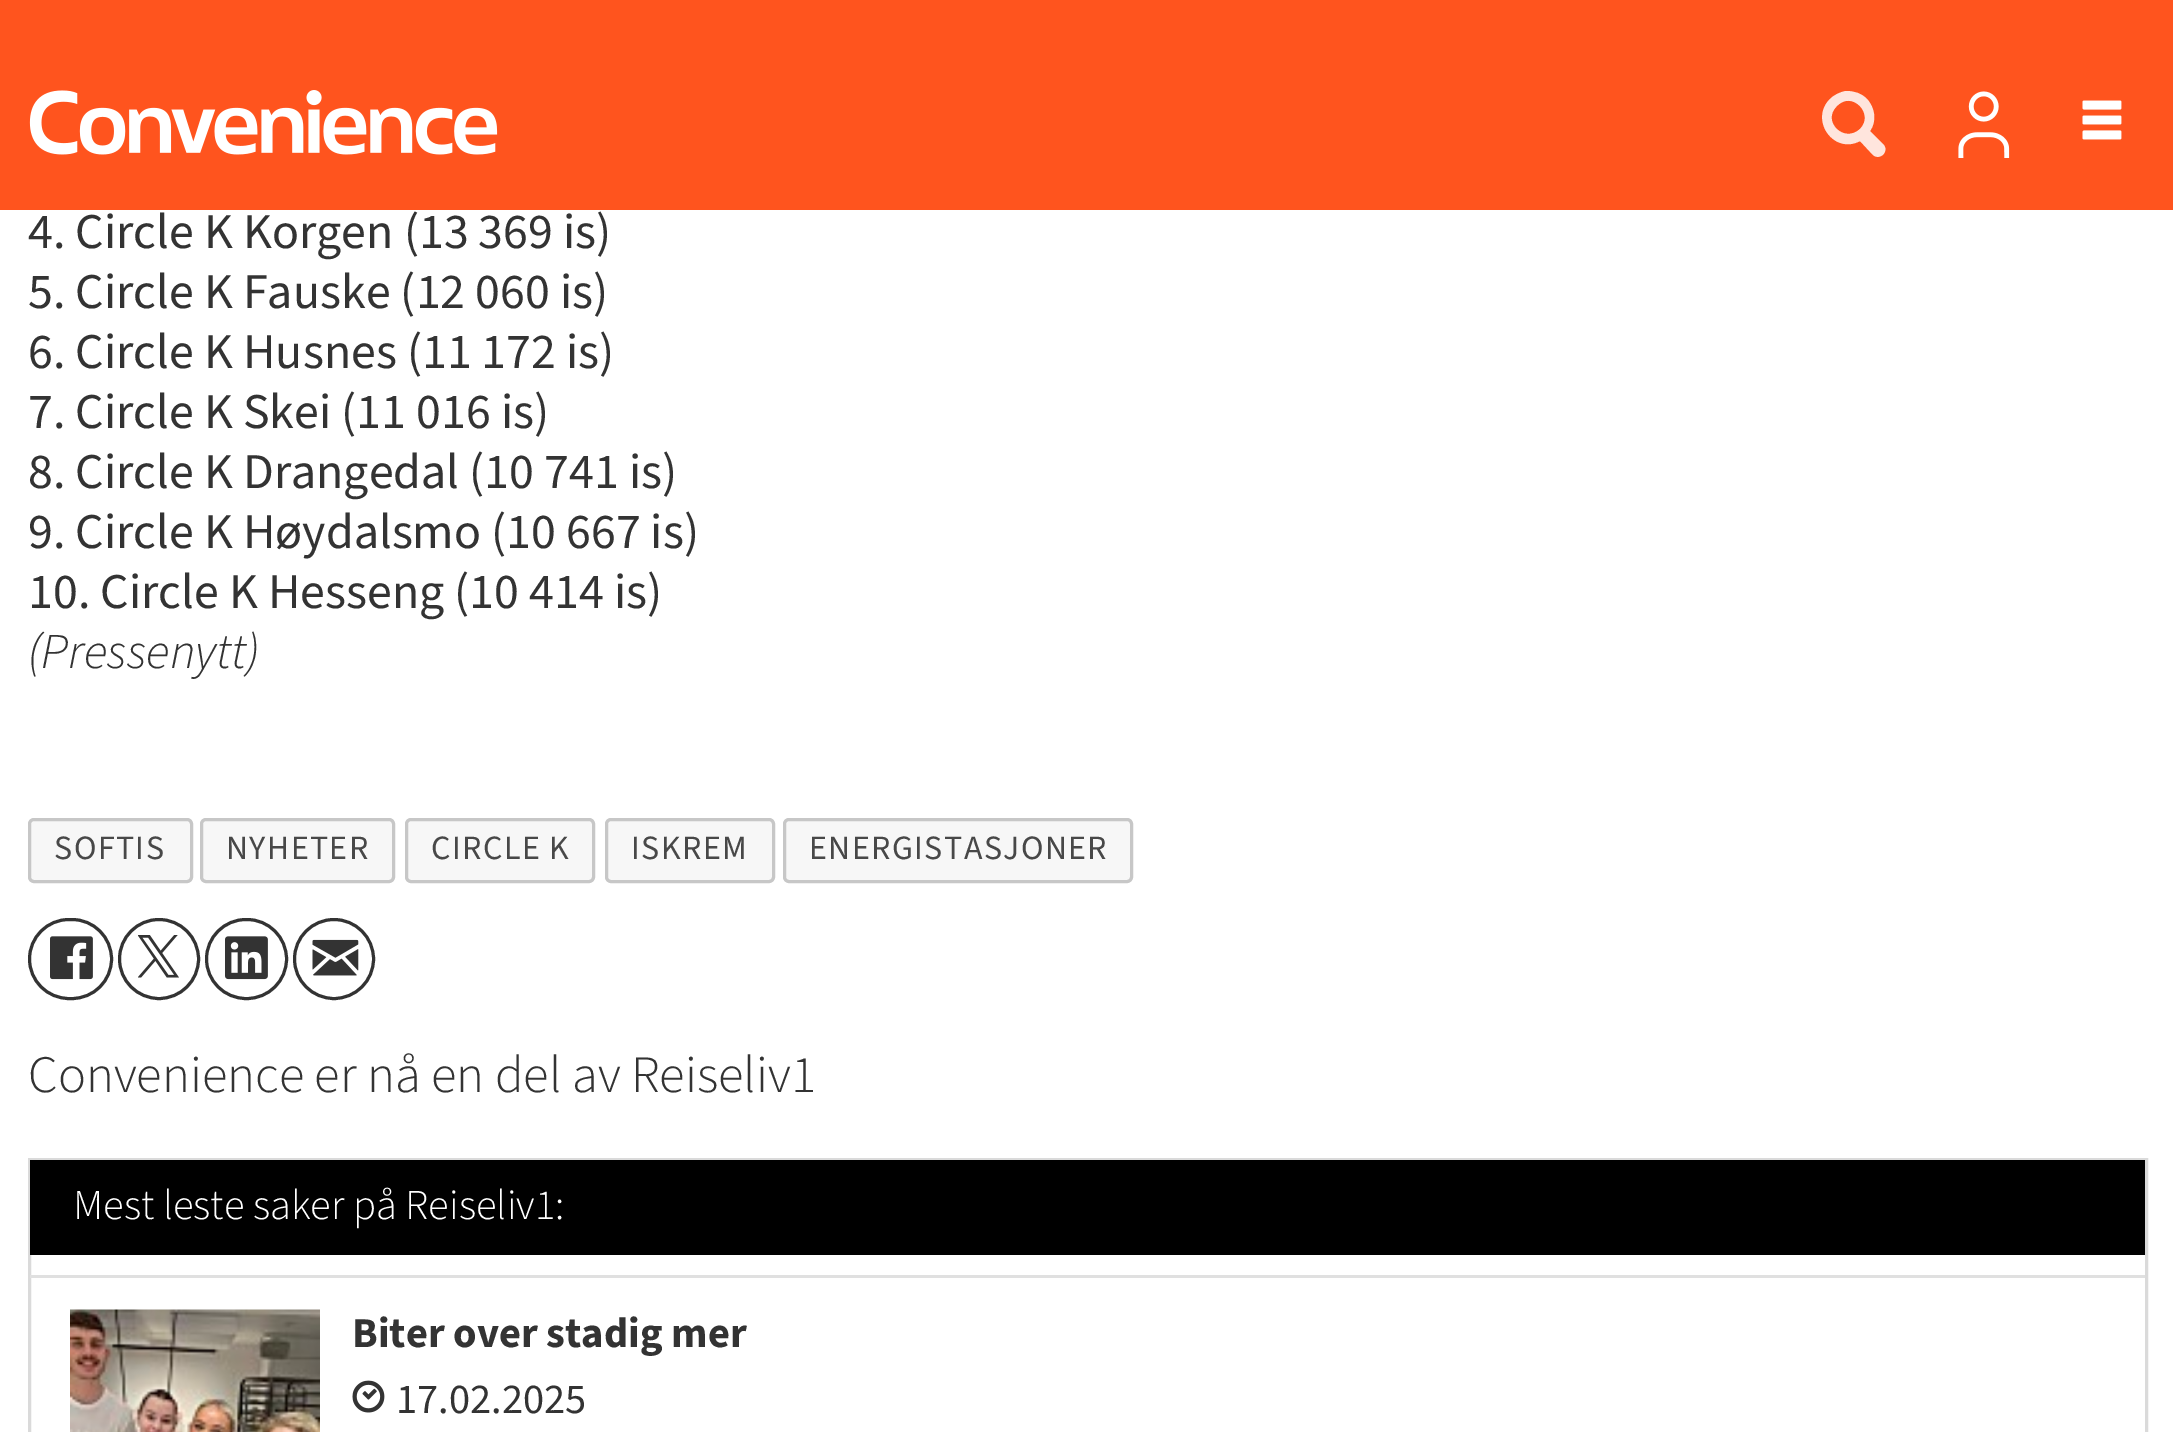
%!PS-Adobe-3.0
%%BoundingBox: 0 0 2173 1432
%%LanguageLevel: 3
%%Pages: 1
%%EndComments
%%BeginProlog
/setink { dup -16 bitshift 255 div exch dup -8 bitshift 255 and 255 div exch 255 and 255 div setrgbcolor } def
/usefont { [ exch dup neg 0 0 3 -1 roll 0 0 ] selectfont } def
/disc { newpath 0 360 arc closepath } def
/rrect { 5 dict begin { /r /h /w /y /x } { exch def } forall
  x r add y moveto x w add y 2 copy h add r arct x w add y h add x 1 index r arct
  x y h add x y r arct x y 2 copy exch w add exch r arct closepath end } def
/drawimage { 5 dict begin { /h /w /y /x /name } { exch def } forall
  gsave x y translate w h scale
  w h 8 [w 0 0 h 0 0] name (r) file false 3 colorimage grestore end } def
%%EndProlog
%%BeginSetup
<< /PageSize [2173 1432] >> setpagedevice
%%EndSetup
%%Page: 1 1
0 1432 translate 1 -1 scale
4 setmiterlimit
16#FFFFFF setink
0 0 2173 1432 rectfill
16#FF541E setink
0 0 2173 210 rectfill
(img1.raw) 29 90 469 65 drawimage
16#FFE5DD setink
1867 99 moveto 1861 93 1854 91 1846 91 curveto 1840 92 1834 95 1830 99 curveto 1809 120 1834 155 1860 141 curveto 1873 155 lineto 1880 161 1890 151 1883 144 curveto 1870 131 lineto 1877 121 1875 108 1867 99 curveto closepath 1860 129 moveto 1844 144 1821 121 1837 106 curveto 1852 90 1875 114 1860 129 curveto closepath fill
(img2.raw) 1958 91 52 67 drawimage
(img3.raw) 2082 100 40 40 drawimage
/SourceSans3-Regular 50 usefont
16#333333 setink
[
    [(4. Circle K Korgen \(13 369 is\)) 28 248]
    [(5. Circle K Fauske \(12 060 is\)) 28 308]
    [(6. Circle K Husnes \(11 172 is\)) 28 368]
    [(7. Circle K Skei \(11 016 is\)) 28 428]
    [(8. Circle K Drangedal \(10 741 is\)) 28 488]
    [(9. Circle K Høydalsmo \(10 667 is\)) 28 548]
    [(10. Circle K Hesseng \(10 414 is\)) 28 608]
] { aload pop moveto show } forall
/SourceSans3-LightItalic 50 usefont
28 668 moveto (\(Pressenytt\)) show
16#F7F7F7 setink
29.5 819.5 162 62 4.5 rrect gsave fill grestore
16#C7C7C7 setink
3 setlinewidth
stroke
/SourceSans3-Regular 34 usefont
16#484848 setink
54 859 moveto 1.4 0 (SOFTIS) ashow
16#F7F7F7 setink
201.5 819.5 192 62 4.5 rrect gsave fill grestore
16#C7C7C7 setink
stroke
16#484848 setink
226 859 moveto 1.4 0 (NYHETER) ashow
16#F7F7F7 setink
406.5 819.5 187 62 4.5 rrect gsave fill grestore
16#C7C7C7 setink
stroke
16#484848 setink
431 859 moveto 1.4 0 (CIRCLE K) ashow
16#F7F7F7 setink
606.5 819.5 167 62 4.5 rrect gsave fill grestore
16#C7C7C7 setink
stroke
16#484848 setink
631 859 moveto 1.4 0 (ISKREM) ashow
16#F7F7F7 setink
784.5 819.5 347 62 4.5 rrect gsave fill grestore
16#C7C7C7 setink
stroke
16#484848 setink
809 859 moveto 1.4 0 (ENERGISTASJONER) ashow
16#333333 setink
29.5 919.5 82 79 39.5 rrect stroke
(img4.raw) 50 936 43 44 drawimage
159 959 39.5 disc stroke
(img5.raw) 138 935 41 43 drawimage
206.5 919.5 80 79 39.5 rrect stroke
(img6.raw) 225 936 43 44 drawimage
334 959 39.5 disc stroke
(img7.raw) 312 939 47 37 drawimage
/SourceSans3-Light 52.5 usefont
28 1092 moveto (Convenience er nå en del av Reiseliv1) show
16#DADADA setink
29.5 1159.5 2117 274 rectstroke
16#000000 setink
30 1160 2115 95 rectfill
/SourceSans3-Light 42.5 usefont
16#FFFFFF setink
73 1219 moveto (Mest leste saker på Reiseliv1:) show
16#E0E0E0 setink
30 1275 2115 3 rectfill
(img8.raw) 70 1309 250 123 drawimage
/SourceSans3-Bold 42.5 usefont
16#333333 setink
352 1347 moveto (Biter over stadig mer) show
(img9.raw) 352 1380 33 33 drawimage
/SourceSans3-Regular 42.5 usefont
396 1413 moveto (17.02.2025) show
showpage
%%EOF
